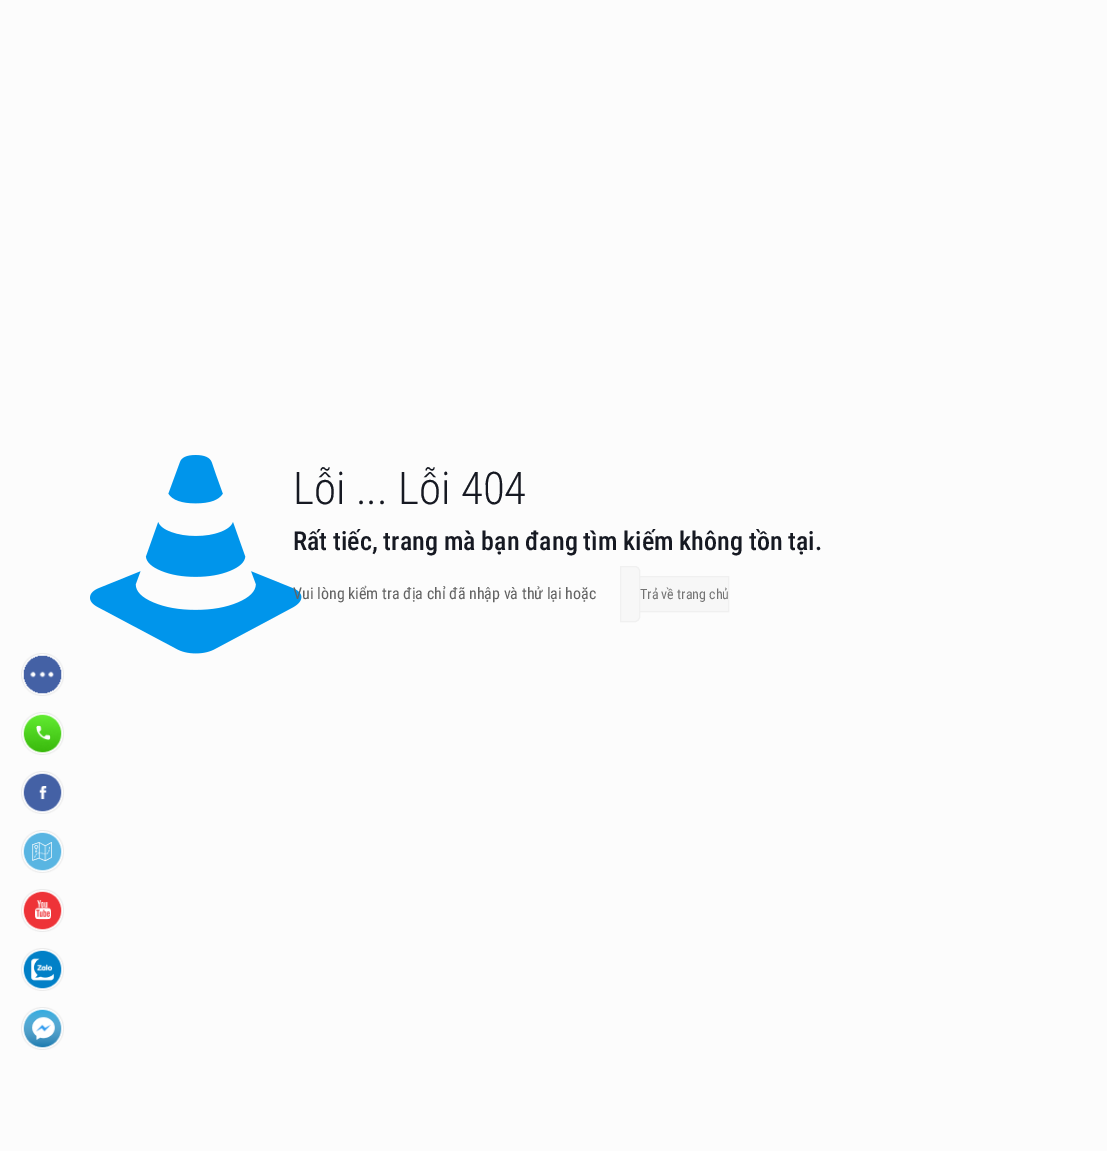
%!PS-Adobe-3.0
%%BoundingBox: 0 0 1107 1151
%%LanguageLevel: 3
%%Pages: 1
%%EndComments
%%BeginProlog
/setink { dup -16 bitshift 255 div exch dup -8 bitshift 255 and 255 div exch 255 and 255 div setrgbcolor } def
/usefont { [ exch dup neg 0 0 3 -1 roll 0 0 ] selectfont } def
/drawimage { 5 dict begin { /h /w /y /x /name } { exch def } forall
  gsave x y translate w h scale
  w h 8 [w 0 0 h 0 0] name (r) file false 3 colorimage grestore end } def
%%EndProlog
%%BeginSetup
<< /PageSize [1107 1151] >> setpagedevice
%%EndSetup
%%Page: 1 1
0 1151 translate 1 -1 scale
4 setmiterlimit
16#FCFCFC setink
0 0 1107 1151 rectfill
(img1.raw) 90 455 212 199 drawimage
/RobotoCondensed-Light 45 usefont
16#161922 setink
293 504 moveto (Lỗi ... Lỗi 404) show
/RobotoCondensed-Medium 26 usefont
293 550 moveto (Rất tiếc, trang mà bạn đang tìm kiếm không tồn tại.) show
/RobotoCondensed-Regular 16 usefont
16#626262 setink
293 599 moveto (Vui lòng kiểm tra địa chỉ đã nhập và thử lại hoặc) show
16#F7F7F7 setink
640 577 88 34 rectfill
16#F0F0F0 setink
620.5 576.5 108 35 rectstroke
16#F7F7F7 setink
620.5 566.5 moveto 635 566.5 lineto 637.5 566.5 639.5 568.5 639.5 571 curveto 639.5 617 lineto 639.5 619.5 637.5 621.5 635 621.5 curveto 620.5 621.5 lineto closepath gsave fill grestore
16#F0F0F0 setink
stroke
/RobotoCondensed-Regular 14 usefont
16#747474 setink
640 599 moveto (Trả về trang chủ) show
(img2.raw) 21 653 43 43 drawimage
(img3.raw) 21 712 43 43 drawimage
(img4.raw) 21 771 43 43 drawimage
(img5.raw) 21 830 43 43 drawimage
(img6.raw) 21 889 43 43 drawimage
(img7.raw) 21 948 43 43 drawimage
(img8.raw) 21 1007 43 43 drawimage
showpage
%%EOF
